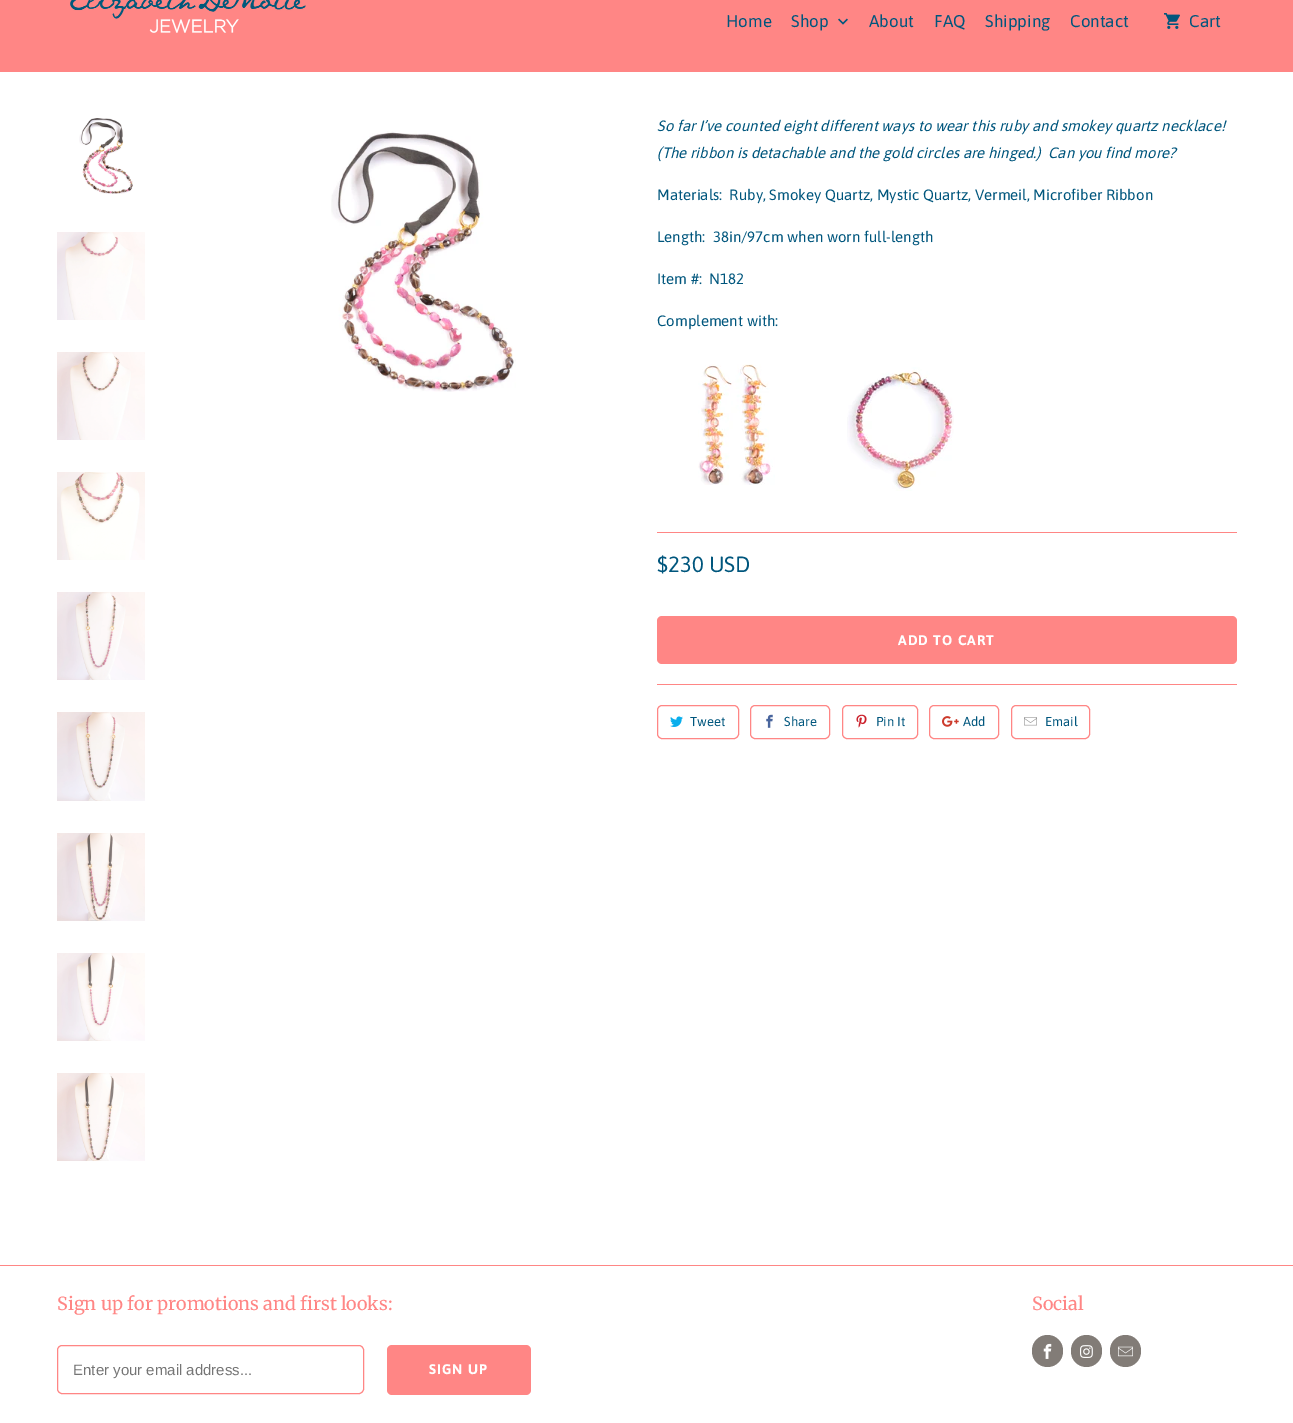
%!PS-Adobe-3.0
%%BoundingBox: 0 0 1293 1423
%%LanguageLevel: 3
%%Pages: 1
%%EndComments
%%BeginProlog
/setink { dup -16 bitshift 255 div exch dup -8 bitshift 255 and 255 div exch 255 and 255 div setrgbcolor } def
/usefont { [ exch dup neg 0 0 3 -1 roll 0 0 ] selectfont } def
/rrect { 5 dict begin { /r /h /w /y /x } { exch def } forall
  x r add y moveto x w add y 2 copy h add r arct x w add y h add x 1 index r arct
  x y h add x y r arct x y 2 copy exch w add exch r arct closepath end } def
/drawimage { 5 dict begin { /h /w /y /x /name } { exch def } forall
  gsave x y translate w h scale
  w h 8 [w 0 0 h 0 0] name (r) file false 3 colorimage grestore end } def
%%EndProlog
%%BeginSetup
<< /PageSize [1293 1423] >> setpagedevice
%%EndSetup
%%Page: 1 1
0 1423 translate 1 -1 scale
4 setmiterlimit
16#FFFFFF setink
0 0 1293 1423 rectfill
16#FF8685 setink
0 0 1293 72 rectfill
(img1.raw) 70 0 236 33 drawimage
/Asap-Regular 17 usefont
16#00567D setink
726 27 moveto (Home) show
791 27 moveto (Shop) show
(img2.raw) 838 18 10 7 drawimage
[
    [(About) 869 27]
    [(FAQ) 934 27]
    [(Shipping) 985 27]
    [(Contact) 1070 27]
] { aload pop moveto show } forall
(img3.raw) 1164 13 16 16 drawimage
1189 27 moveto (Cart) show
(img4.raw) 79 118 54 76 drawimage
(img5.raw) 57 232 88 88 drawimage
(img6.raw) 57 352 88 88 drawimage
(img7.raw) 57 472 88 88 drawimage
(img8.raw) 57 592 88 88 drawimage
(img9.raw) 57 712 88 89 drawimage
(img10.raw) 57 833 88 88 drawimage
(img11.raw) 57 953 88 88 drawimage
(img12.raw) 57 1073 88 88 drawimage
(img13.raw) 331 131 185 261 drawimage
/Asap-Italic 15 usefont
657 131 moveto (So far I’ve counted eight different ways to wear this ruby and smokey quartz necklace!) show
657 158 moveto (\(The ribbon is detachable and the gold circles are hinged.\)  Can you find more?) show
/Asap-Regular 15 usefont
[
    [(Materials:  Ruby, Smokey Quartz, Mystic Quartz, Vermeil, Microfiber Ribbon) 657 200]
    [(Length:  38in/97cm when worn full-length) 657 242]
    [(Item #:  N182) 657 284]
    [(Complement with:) 657 326]
] { aload pop moveto show } forall
(img14.raw) 698 364 77 121 drawimage
(img15.raw) 847 367 107 124 drawimage
16#FF8685 setink
657 532 580 1 rectfill
/Asap-Regular 22 usefont
16#00567D setink
657 572 moveto ($230 USD) show
16#FF8685 setink
657 616 580 48 5 rrect fill
/Asap-Bold 14 usefont
16#FFFFFF setink
898 645 moveto 1 0 (ADD TO CART) ashow
16#FF8685 setink
657 684 580 1 rectfill
657.5 705.5 81 33 4.5 rrect stroke
(img16.raw) 670 716 13 11 drawimage
/Asap-Regular 13 usefont
16#00567D setink
690 726 moveto (Tweet) show
16#FF8685 setink
750.5 705.5 79 33 4.5 rrect stroke
(img17.raw) 766 714 7 14 drawimage
16#00567D setink
784 726 moveto (Share) show
16#FF8685 setink
842.5 705.5 75 33 4.5 rrect stroke
(img18.raw) 856 714 11 14 drawimage
16#00567D setink
876 726 moveto (Pin It) show
16#FF8685 setink
929.5 705.5 69 33 4.5 rrect stroke
(img19.raw) 942 716 17 11 drawimage
16#00567D setink
963 726 moveto (Add) show
16#FF8685 setink
1011.5 705.5 78 33 4.5 rrect stroke
(img20.raw) 1024 717 13 9 drawimage
16#00567D setink
1045 726 moveto (Email) show
16#FF8685 setink
0 1265 1293 1 rectfill
/Merriweather-Regular 18 usefont
57 1310 moveto (Sign up for promotions and first looks:) show
57.5 1345.5 306 48 4.5 rrect stroke
/LiberationSans-Regular 15 usefont
16#757575 setink
73 1375 moveto (Enter your email address...) show
16#FF8685 setink
387 1345 144 50 5 rrect fill
/Asap-Bold 14 usefont
16#FFFFFF setink
429 1374 moveto 1 0 (SIGN UP) ashow
/Merriweather-Regular 18 usefont
16#FF8685 setink
1032 1310 moveto (Social) show
16#827C77 setink
1032 1335 31 32 15.5 rrect fill
(img21.raw) 1043 1343 9 16 drawimage
1071 1335 31 32 15.5 rrect fill
(img22.raw) 1080 1345 13 13 drawimage
1110 1335 31 32 15.5 rrect fill
(img23.raw) 1118 1346 15 11 drawimage
showpage
%%EOF
